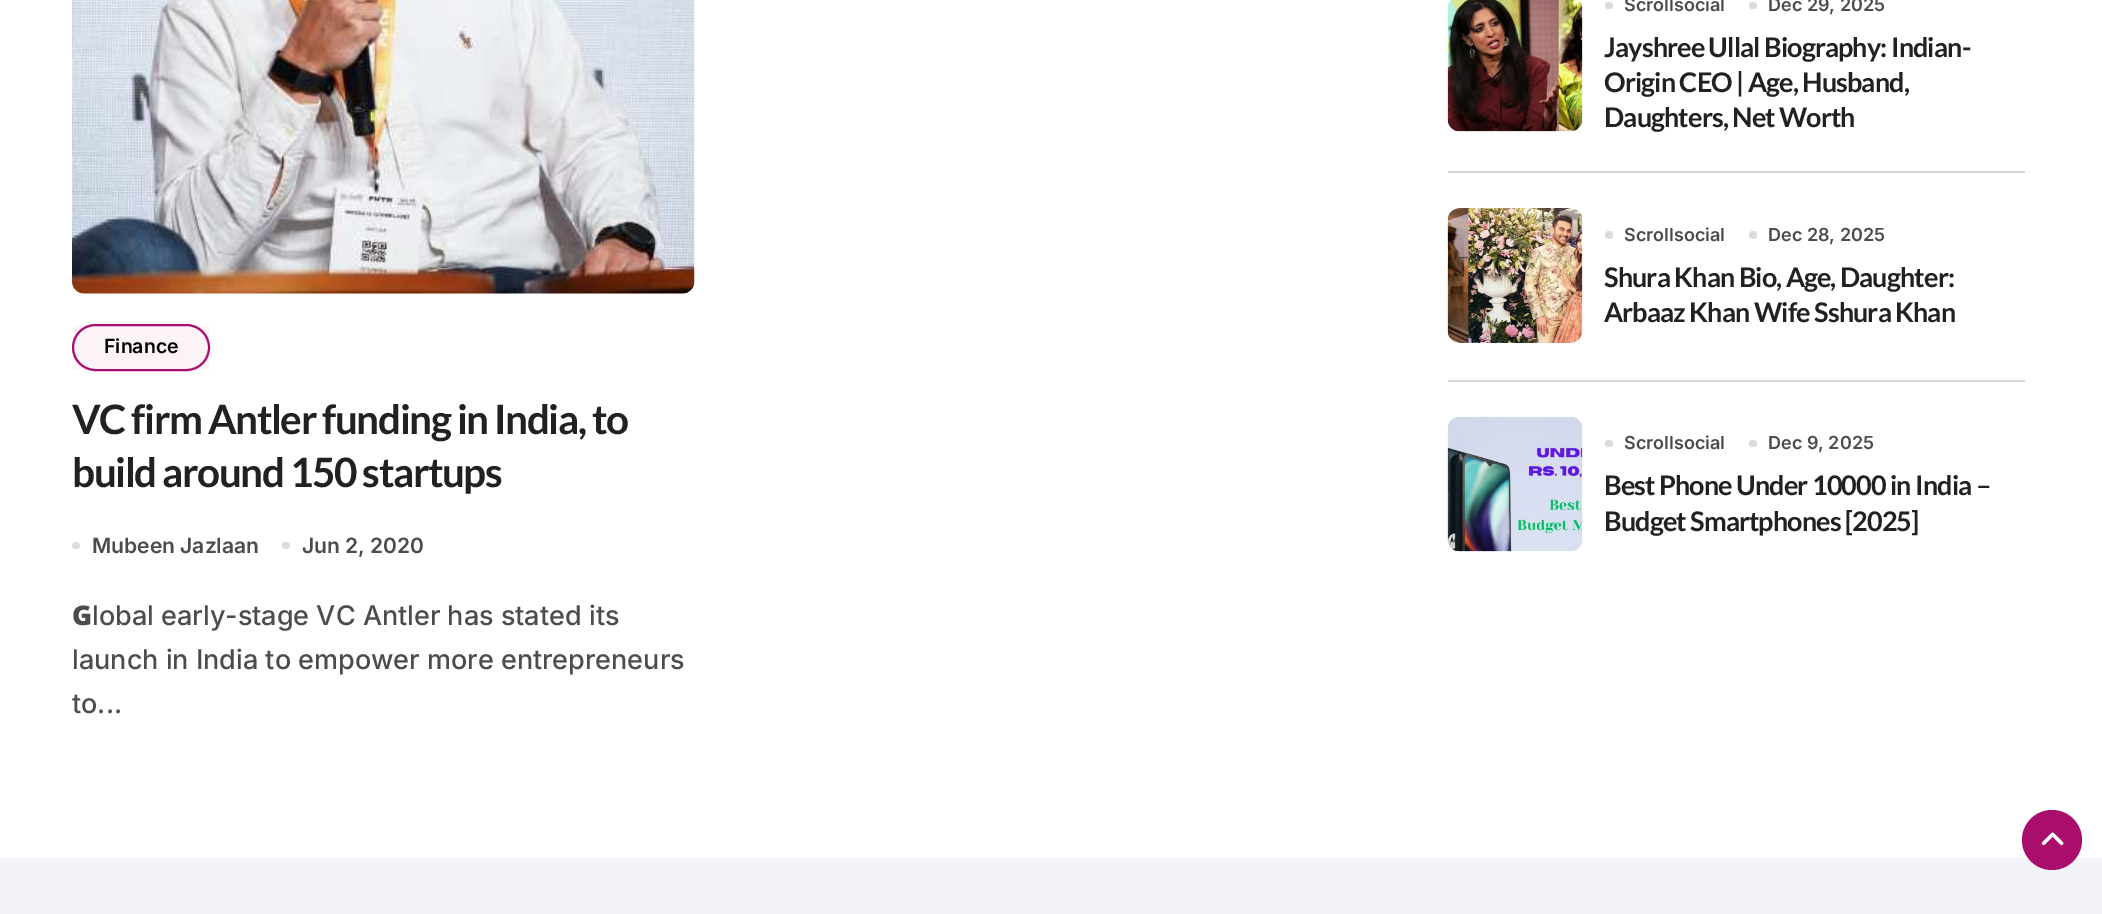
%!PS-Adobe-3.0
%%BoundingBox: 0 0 2102 914
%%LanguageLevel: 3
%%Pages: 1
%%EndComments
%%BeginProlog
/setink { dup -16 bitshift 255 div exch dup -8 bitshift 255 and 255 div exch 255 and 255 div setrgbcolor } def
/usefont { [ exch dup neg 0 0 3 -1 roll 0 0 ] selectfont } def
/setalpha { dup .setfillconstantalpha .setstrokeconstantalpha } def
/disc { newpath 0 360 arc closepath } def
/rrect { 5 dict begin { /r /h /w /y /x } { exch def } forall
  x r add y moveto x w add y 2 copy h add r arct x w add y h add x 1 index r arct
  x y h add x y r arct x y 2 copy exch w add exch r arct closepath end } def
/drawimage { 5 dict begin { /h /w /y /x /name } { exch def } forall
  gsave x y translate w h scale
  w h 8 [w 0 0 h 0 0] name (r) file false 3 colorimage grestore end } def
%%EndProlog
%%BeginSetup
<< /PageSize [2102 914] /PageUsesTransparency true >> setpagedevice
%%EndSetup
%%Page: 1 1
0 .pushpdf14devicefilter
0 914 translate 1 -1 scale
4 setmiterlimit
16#FFFFFF setink
0 0 2102 914 rectfill
(img1.raw) 72 0 623 294 drawimage
16#A90E6D setink
2 setlinewidth
73 325 136 45 22.5 rrect stroke
0.05 setalpha
74 326 135 43 rectfill
/Inter-SemiBold 19.5 usefont
1 setalpha
16#000000 setink
104 353 moveto (Finance) show
/Lato-Bold 40.5 usefont
16#212121 setink
72 434 moveto -1.45 0 (VC firm Antler funding in India, to) ashow
72 487 moveto -1.45 0 (build around 150 startups) ashow
16#DBDBDB setink
72 542 8 7 3.5 rrect fill
/Inter-SemiBold 21 usefont
16#4C4C4C setink
92 553 moveto (Mubeen Jazlaan) show
16#DBDBDB setink
282 542 8 7 3.5 rrect fill
16#4C4C4C setink
302 553 moveto (Jun 2, 2020) show
/NotoSans-Black 27 usefont
72 625 moveto (G) show
/Inter-Medium 27 usefont
[
    [(lobal early-stage VC Antler has stated its) 92 625]
    [(launch in India to empower more entrepreneurs) 72 669]
    [(to...) 72 713]
] { aload pop moveto show } forall
16#D7D7D7 setink
1448 171 577 2 rectfill
(img2.raw) 1447 0 136 132 drawimage
16#DBDBDB setink
1605 2 8 7 3.5 rrect fill
/Inter-SemiBold 18 usefont
16#4C4C4C setink
1624 11 moveto (Scrollsocial) show
16#DBDBDB setink
1749 2 8 7 3.5 rrect fill
16#4C4C4C setink
1768 11 moveto (Dec 29, 2025) show
/Lato-Bold 27 usefont
16#212121 setink
1604 57 moveto -0.9 0 (Jayshree Ullal Biography: Indian-) ashow
1604 92 moveto -0.9 0 (Origin CEO | Age, Husband,) ashow
1604 127 moveto -0.9 0 (Daughters, Net Worth) ashow
16#D7D7D7 setink
1448 380 577 2 rectfill
(img3.raw) 1447 208 136 135 drawimage
16#DBDBDB setink
1609 235 4 disc fill
/Inter-SemiBold 18 usefont
16#4C4C4C setink
1624 241 moveto (Scrollsocial) show
16#DBDBDB setink
1753 235 4 disc fill
16#4C4C4C setink
1768 241 moveto (Dec 28, 2025) show
/Lato-Bold 27 usefont
16#212121 setink
1604 287 moveto -0.9 0 (Shura Khan Bio, Age, Daughter:) ashow
1604 322 moveto -0.9 0 (Arbaaz Khan Wife Sshura Khan) ashow
(img4.raw) 1447 416 136 136 drawimage
16#DBDBDB setink
1605 440 8 7 3.5 rrect fill
/Inter-SemiBold 18 usefont
16#4C4C4C setink
1624 449 moveto (Scrollsocial) show
16#DBDBDB setink
1749 440 8 7 3.5 rrect fill
16#4C4C4C setink
1768 449 moveto (Dec 9, 2025) show
/Lato-Bold 27 usefont
16#212121 setink
1604 495 moveto -0.9 0 (Best Phone Under 10000 in India –) ashow
1604 531 moveto -0.9 0 (Budget Smartphones [2025]) ashow
16#F2F2F8 setink
0 858 2102 56 rectfill
16#A90E6D setink
2052 840 30 disc fill
(img5.raw) 2041 832 23 14 drawimage
.poppdf14devicefilter showpage
%%EOF
